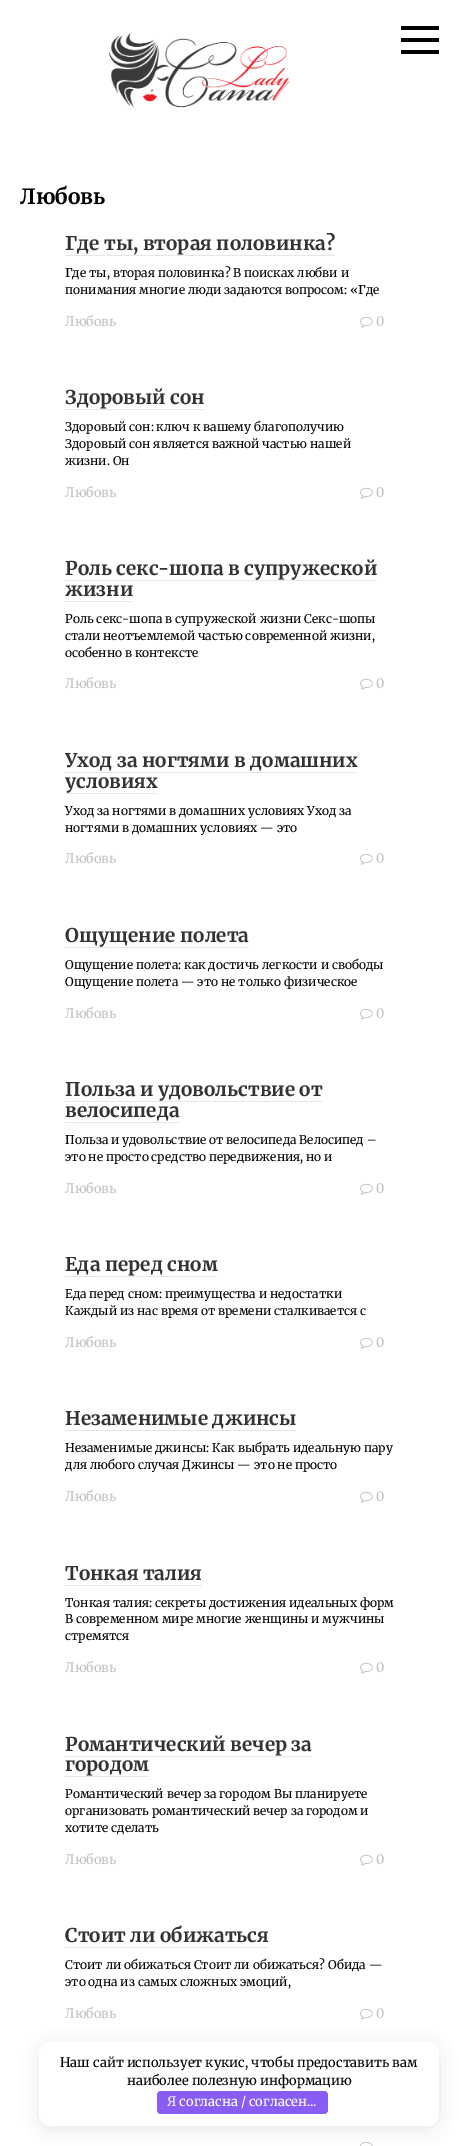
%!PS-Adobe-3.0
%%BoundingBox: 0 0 459 2146
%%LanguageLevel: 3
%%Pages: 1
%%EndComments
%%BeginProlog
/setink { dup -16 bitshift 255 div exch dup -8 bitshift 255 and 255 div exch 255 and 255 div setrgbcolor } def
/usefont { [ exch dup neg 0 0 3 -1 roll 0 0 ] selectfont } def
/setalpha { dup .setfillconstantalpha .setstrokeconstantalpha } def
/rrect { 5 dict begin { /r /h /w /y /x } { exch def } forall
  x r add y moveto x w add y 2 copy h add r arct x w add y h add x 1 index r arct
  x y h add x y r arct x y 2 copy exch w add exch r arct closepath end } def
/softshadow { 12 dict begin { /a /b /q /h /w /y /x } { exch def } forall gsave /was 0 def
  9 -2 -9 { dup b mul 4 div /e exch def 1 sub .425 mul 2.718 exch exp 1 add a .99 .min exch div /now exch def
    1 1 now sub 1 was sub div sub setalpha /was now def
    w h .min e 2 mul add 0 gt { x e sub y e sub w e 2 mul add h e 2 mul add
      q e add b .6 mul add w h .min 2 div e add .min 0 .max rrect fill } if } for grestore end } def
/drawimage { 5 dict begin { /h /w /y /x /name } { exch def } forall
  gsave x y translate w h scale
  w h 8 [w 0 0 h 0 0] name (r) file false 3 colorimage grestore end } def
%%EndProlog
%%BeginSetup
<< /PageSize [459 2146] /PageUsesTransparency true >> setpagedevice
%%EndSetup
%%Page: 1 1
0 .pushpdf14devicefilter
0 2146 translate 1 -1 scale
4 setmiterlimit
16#FFFFFF setink
0 0 459 2146 rectfill
(img1.raw) 108 32 182 76 drawimage
[
    [401 26 38 4 16#000000]
    [401 50 38 4 16#000000]
    [401 38 38 4 16#000000]
] { aload pop setink rectfill } forall
/Merriweather-Bold 21 usefont
20 204 moveto (Любовь) show
gsave
65 233 330 104 rectclip
/Merriweather-Bold 19 usefont
16#333333 setink
65 250 moveto (Где ты, вторая половинка?) show
grestore
16#E6E6E6 setink
65 255 270 1 rectfill
/Merriweather-Regular 12 usefont
16#000000 setink
65 277 moveto (Где ты, вторая половинка? В поисках любви и) show
65 294 moveto (понимания многие люди задаются вопросом: «Где) show
/Merriweather-Regular 13 usefont
16#C2C2C2 setink
65 326 moveto (Любовь) show
(img2.raw) 360 316 13 12 drawimage
376 326 moveto (0) show
/Merriweather-Bold 19 usefont
16#333333 setink
65 404 moveto (Здоровый сон) show
16#E6E6E6 setink
65 409 139 1 rectfill
/Merriweather-Regular 12 usefont
16#000000 setink
[
    [(Здоровый сон: ключ к вашему благополучию) 65 431]
    [(Здоровый сон является важной частью нашей) 65 448]
    [(жизни. Он) 65 465]
] { aload pop moveto show } forall
/Merriweather-Regular 13 usefont
16#C2C2C2 setink
65 497 moveto (Любовь) show
(img2.raw) 360 487 13 12 drawimage
376 497 moveto (0) show
/Merriweather-Bold 19 usefont
16#333333 setink
65 575 moveto (Роль секс-шопа в супружеской) show
65 596 moveto (жизни) show
16#E6E6E6 setink
65 580 312 1 rectfill
65 601 67 1 rectfill
/Merriweather-Regular 12 usefont
16#000000 setink
[
    [(Роль секс-шопа в супружеской жизни Секс-шопы) 65 623]
    [(стали неотъемлемой частью современной жизни,) 65 640]
    [(особенно в контексте) 65 657]
] { aload pop moveto show } forall
/Merriweather-Regular 13 usefont
16#C2C2C2 setink
65 688 moveto (Любовь) show
(img2.raw) 360 678 13 12 drawimage
376 688 moveto (0) show
gsave
65 750 330 125 rectclip
/Merriweather-Bold 19 usefont
16#333333 setink
65 767 moveto (Уход за ногтями в домашних) show
grestore
16#E6E6E6 setink
65 772 292 1 rectfill
/Merriweather-Bold 19 usefont
16#333333 setink
65 788 moveto (условиях) show
16#E6E6E6 setink
65 793 92 1 rectfill
/Merriweather-Regular 12 usefont
16#000000 setink
65 815 moveto (Уход за ногтями в домашних условиях Уход за) show
65 832 moveto (ногтями в домашних условиях — это) show
/Merriweather-Regular 13 usefont
16#C2C2C2 setink
65 863 moveto (Любовь) show
(img2.raw) 360 853 13 12 drawimage
376 863 moveto (0) show
/Merriweather-Bold 19 usefont
16#333333 setink
65 942 moveto (Ощущение полета) show
16#E6E6E6 setink
65 947 184 1 rectfill
/Merriweather-Regular 12 usefont
16#000000 setink
65 969 moveto (Ощущение полета: как достичь легкости и свободы) show
65 986 moveto (Ощущение полета — это не только физическое) show
/Merriweather-Regular 13 usefont
16#C2C2C2 setink
65 1018 moveto (Любовь) show
(img2.raw) 360 1008 13 12 drawimage
376 1018 moveto (0) show
/Merriweather-Bold 19 usefont
16#333333 setink
65 1096 moveto (Польза и удовольствие от) show
16#E6E6E6 setink
65 1101 257 1 rectfill
16#333333 setink
65 1117 moveto (велосипеда) show
16#E6E6E6 setink
65 1122 114 1 rectfill
/Merriweather-Regular 12 usefont
16#000000 setink
65 1144 moveto (Польза и удовольствие от велосипеда Велосипед –) show
65 1161 moveto (это не просто средство передвижения, но и) show
/Merriweather-Regular 13 usefont
16#C2C2C2 setink
65 1193 moveto (Любовь) show
(img2.raw) 360 1183 13 12 drawimage
376 1193 moveto (0) show
/Merriweather-Bold 19 usefont
16#333333 setink
65 1271 moveto (Еда перед сном) show
16#E6E6E6 setink
65 1276 152 1 rectfill
/Merriweather-Regular 12 usefont
16#000000 setink
65 1298 moveto (Еда перед сном: преимущества и недостатки) show
65 1315 moveto (Каждый из нас время от времени сталкивается с) show
/Merriweather-Regular 13 usefont
16#C2C2C2 setink
65 1347 moveto (Любовь) show
(img2.raw) 360 1337 13 12 drawimage
376 1347 moveto (0) show
/Merriweather-Bold 19 usefont
16#333333 setink
65 1425 moveto (Незаменимые джинсы) show
16#E6E6E6 setink
65 1430 231 1 rectfill
/Merriweather-Regular 12 usefont
16#000000 setink
65 1452 moveto (Незаменимые джинсы: Как выбрать идеальную пару) show
gsave
65 1408 330 105 rectclip
65 1469 moveto (для любого случая Джинсы — это не просто) show
grestore
/Merriweather-Regular 13 usefont
16#C2C2C2 setink
65 1501 moveto (Любовь) show
(img2.raw) 360 1491 13 12 drawimage
376 1501 moveto (0) show
/Merriweather-Bold 19 usefont
16#333333 setink
65 1580 moveto (Тонкая талия) show
16#E6E6E6 setink
65 1585 137 1 rectfill
gsave
65 1563 330 121 rectclip
/Merriweather-Regular 12 usefont
16#000000 setink
65 1607 moveto (Тонкая талия: секреты достижения идеальных форм) show
grestore
/Merriweather-Regular 12 usefont
16#000000 setink
65 1623 moveto (В современном мире многие женщины и мужчины) show
65 1640 moveto (стремятся) show
/Merriweather-Regular 13 usefont
16#C2C2C2 setink
65 1672 moveto (Любовь) show
(img2.raw) 360 1662 13 12 drawimage
376 1672 moveto (0) show
/Merriweather-Bold 19 usefont
16#333333 setink
65 1751 moveto (Романтический вечер за) show
16#E6E6E6 setink
65 1756 246 1 rectfill
16#333333 setink
65 1771 moveto (городом) show
16#E6E6E6 setink
65 1776 84 1 rectfill
/Merriweather-Regular 12 usefont
16#000000 setink
[
    [(Романтический вечер за городом Вы планируете) 65 1798]
    [(организовать романтический вечер за городом и) 65 1815]
    [(хотите сделать) 65 1832]
] { aload pop moveto show } forall
/Merriweather-Regular 13 usefont
16#C2C2C2 setink
65 1864 moveto (Любовь) show
(img2.raw) 360 1854 13 12 drawimage
376 1864 moveto (0) show
/Merriweather-Bold 19 usefont
16#333333 setink
65 1942 moveto (Стоит ли обижаться) show
16#E6E6E6 setink
65 1947 203 1 rectfill
/Merriweather-Regular 12 usefont
16#000000 setink
65 1969 moveto (Стоит ли обижаться Стоит ли обижаться? Обида —) show
65 1986 moveto (это одна из самых сложных эмоций,) show
/Merriweather-Regular 13 usefont
16#C2C2C2 setink
65 2018 moveto (Любовь) show
(img2.raw) 360 2008 13 12 drawimage
376 2018 moveto (0) show
(img3.raw) 360 2141 13 5 drawimage
16#292C38 setink
44 2050 390 74 7 10 0.2 softshadow
16#FFFFFF setink
39 2042 400 84 12 rrect fill
16#000000 setink
60 2067 moveto (Наш сайт использует кукис, чтобы предоставить вам) show
127 2085 moveto (наиболее полезную информацию) show
16#885DF4 setink
157 2091 171 23 4 rrect fill
16#FFFFFF setink
167 2106 moveto (Я согласна / согласен...) show
.poppdf14devicefilter showpage
%%EOF
